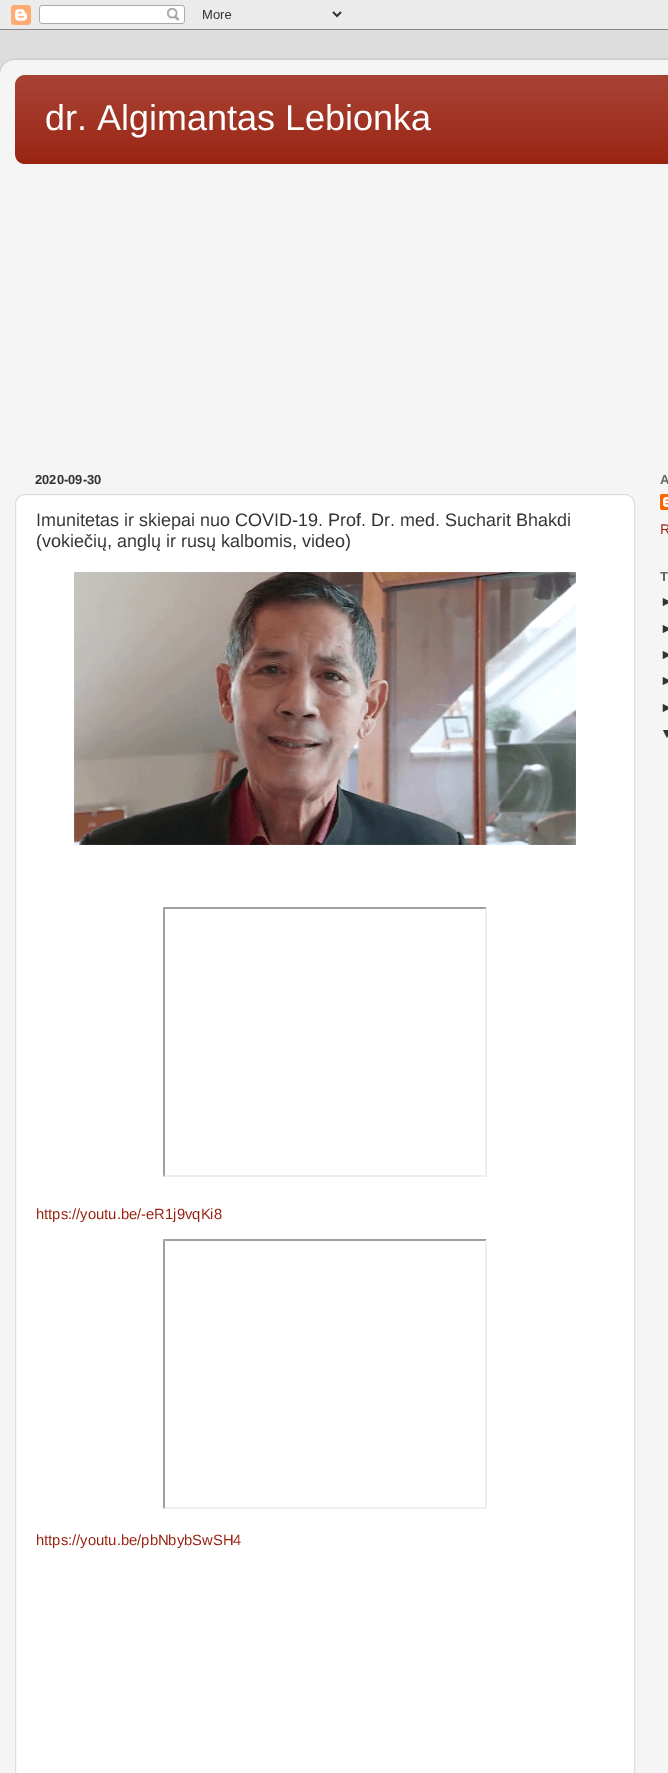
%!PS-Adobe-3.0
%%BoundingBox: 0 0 668 1773
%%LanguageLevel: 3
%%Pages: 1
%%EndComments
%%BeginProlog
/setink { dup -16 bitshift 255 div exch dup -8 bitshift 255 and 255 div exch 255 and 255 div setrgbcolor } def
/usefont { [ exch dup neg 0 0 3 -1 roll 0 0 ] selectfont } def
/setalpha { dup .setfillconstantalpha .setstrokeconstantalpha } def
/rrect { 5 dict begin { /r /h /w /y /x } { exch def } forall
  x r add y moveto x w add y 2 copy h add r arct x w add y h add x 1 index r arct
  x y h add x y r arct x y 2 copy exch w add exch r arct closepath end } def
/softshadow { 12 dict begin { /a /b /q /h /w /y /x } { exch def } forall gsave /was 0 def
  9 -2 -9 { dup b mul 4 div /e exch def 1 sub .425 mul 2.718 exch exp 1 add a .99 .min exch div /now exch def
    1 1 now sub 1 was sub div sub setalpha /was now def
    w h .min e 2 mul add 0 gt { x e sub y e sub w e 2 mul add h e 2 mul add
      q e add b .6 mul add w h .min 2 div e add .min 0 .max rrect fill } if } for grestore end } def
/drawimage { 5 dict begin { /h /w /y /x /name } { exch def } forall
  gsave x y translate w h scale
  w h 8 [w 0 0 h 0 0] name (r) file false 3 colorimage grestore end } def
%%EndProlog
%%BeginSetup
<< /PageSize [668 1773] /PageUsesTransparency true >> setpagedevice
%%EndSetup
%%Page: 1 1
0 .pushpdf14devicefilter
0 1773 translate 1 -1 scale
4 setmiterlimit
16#DDDDDD setink
0 0 668 1773 rectfill
(img1.raw) 0 0 668 30 drawimage
gsave
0 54 moveto 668 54 lineto 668 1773 lineto 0 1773 lineto closepath 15 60 moveto 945 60 lineto 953.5 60 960 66.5 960 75 curveto 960 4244 lineto 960 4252.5 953.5 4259 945 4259 curveto 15 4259 lineto 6.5 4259 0 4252.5 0 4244 curveto 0 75 lineto 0 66.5 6.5 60 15 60 curveto closepath eoclip newpath
16#000000 setink
0 60 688 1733 15 1.5 0.15 softshadow
grestore
(img2.raw) 0 60 668 1713 drawimage
16#992211 setink
15 75 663 89 10 rrect fill
(img3.raw) 15 75 653 84 drawimage
/LiberationSans-Regular 36 usefont
16#FFFFFF setink
45 130 moveto (dr. Algimantas Lebionka) show
/LiberationSans-Bold 13 usefont
16#333333 setink
35 484 moveto (2020-09-30) show
16#FFFFFF setink
15.5 494.5 619 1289 9.5 rrect gsave fill grestore
16#DDDDDD setink
stroke
/LiberationSans-Regular 18 usefont
16#333333 setink
36 526 moveto (Imunitetas ir skiepai nuo COVID-19. Prof. Dr. med. Sucharit Bhakdi) show
36 547 moveto (\(vokiečių, anglų ir rusų kalbomis, video\)) show
(img4.raw) 74 572 502 273 drawimage
16#9F9F9F setink
163 907 moveto 487 907 lineto 485 909 lineto 165 909 lineto closepath fill
16#EEEEEE setink
487 907 moveto 487 1177 lineto 485 1175 lineto 485 909 lineto closepath fill
487 1177 moveto 163 1177 lineto 165 1175 lineto 485 1175 lineto closepath fill
16#9F9F9F setink
163 1177 moveto 163 907 lineto 165 909 lineto 165 1175 lineto closepath fill
/LiberationSans-Regular 14.8 usefont
16#992211 setink
36 1219 moveto (https://youtu.be/-eR1j9vqKi8) show
16#9F9F9F setink
163 1239 moveto 487 1239 lineto 485 1241 lineto 165 1241 lineto closepath fill
16#EEEEEE setink
487 1239 moveto 487 1509 lineto 485 1507 lineto 485 1241 lineto closepath fill
487 1509 moveto 163 1509 lineto 165 1507 lineto 485 1507 lineto closepath fill
16#9F9F9F setink
163 1509 moveto 163 1239 lineto 165 1241 lineto 165 1507 lineto closepath fill
16#992211 setink
36 1545 moveto (https://youtu.be/pbNbybSwSH4) show
/LiberationSans-Bold 13 usefont
16#666666 setink
660 484 moveto (A) show
(img5.raw) 660 494 8 16 drawimage
/LiberationSans-Regular 14 usefont
16#992211 setink
660 534 moveto (R) show
/LiberationSans-Bold 13 usefont
16#666666 setink
660 581 moveto (T) show
/LiberationSans-Regular 14 usefont
16#333333 setink
[
    [(►) 660 606]
    [(►) 660 633]
    [(►) 660 659]
    [(►) 660 685]
    [(►) 660 712]
    [(▼) 660 738]
] { aload pop moveto show } forall
.poppdf14devicefilter showpage
%%EOF
